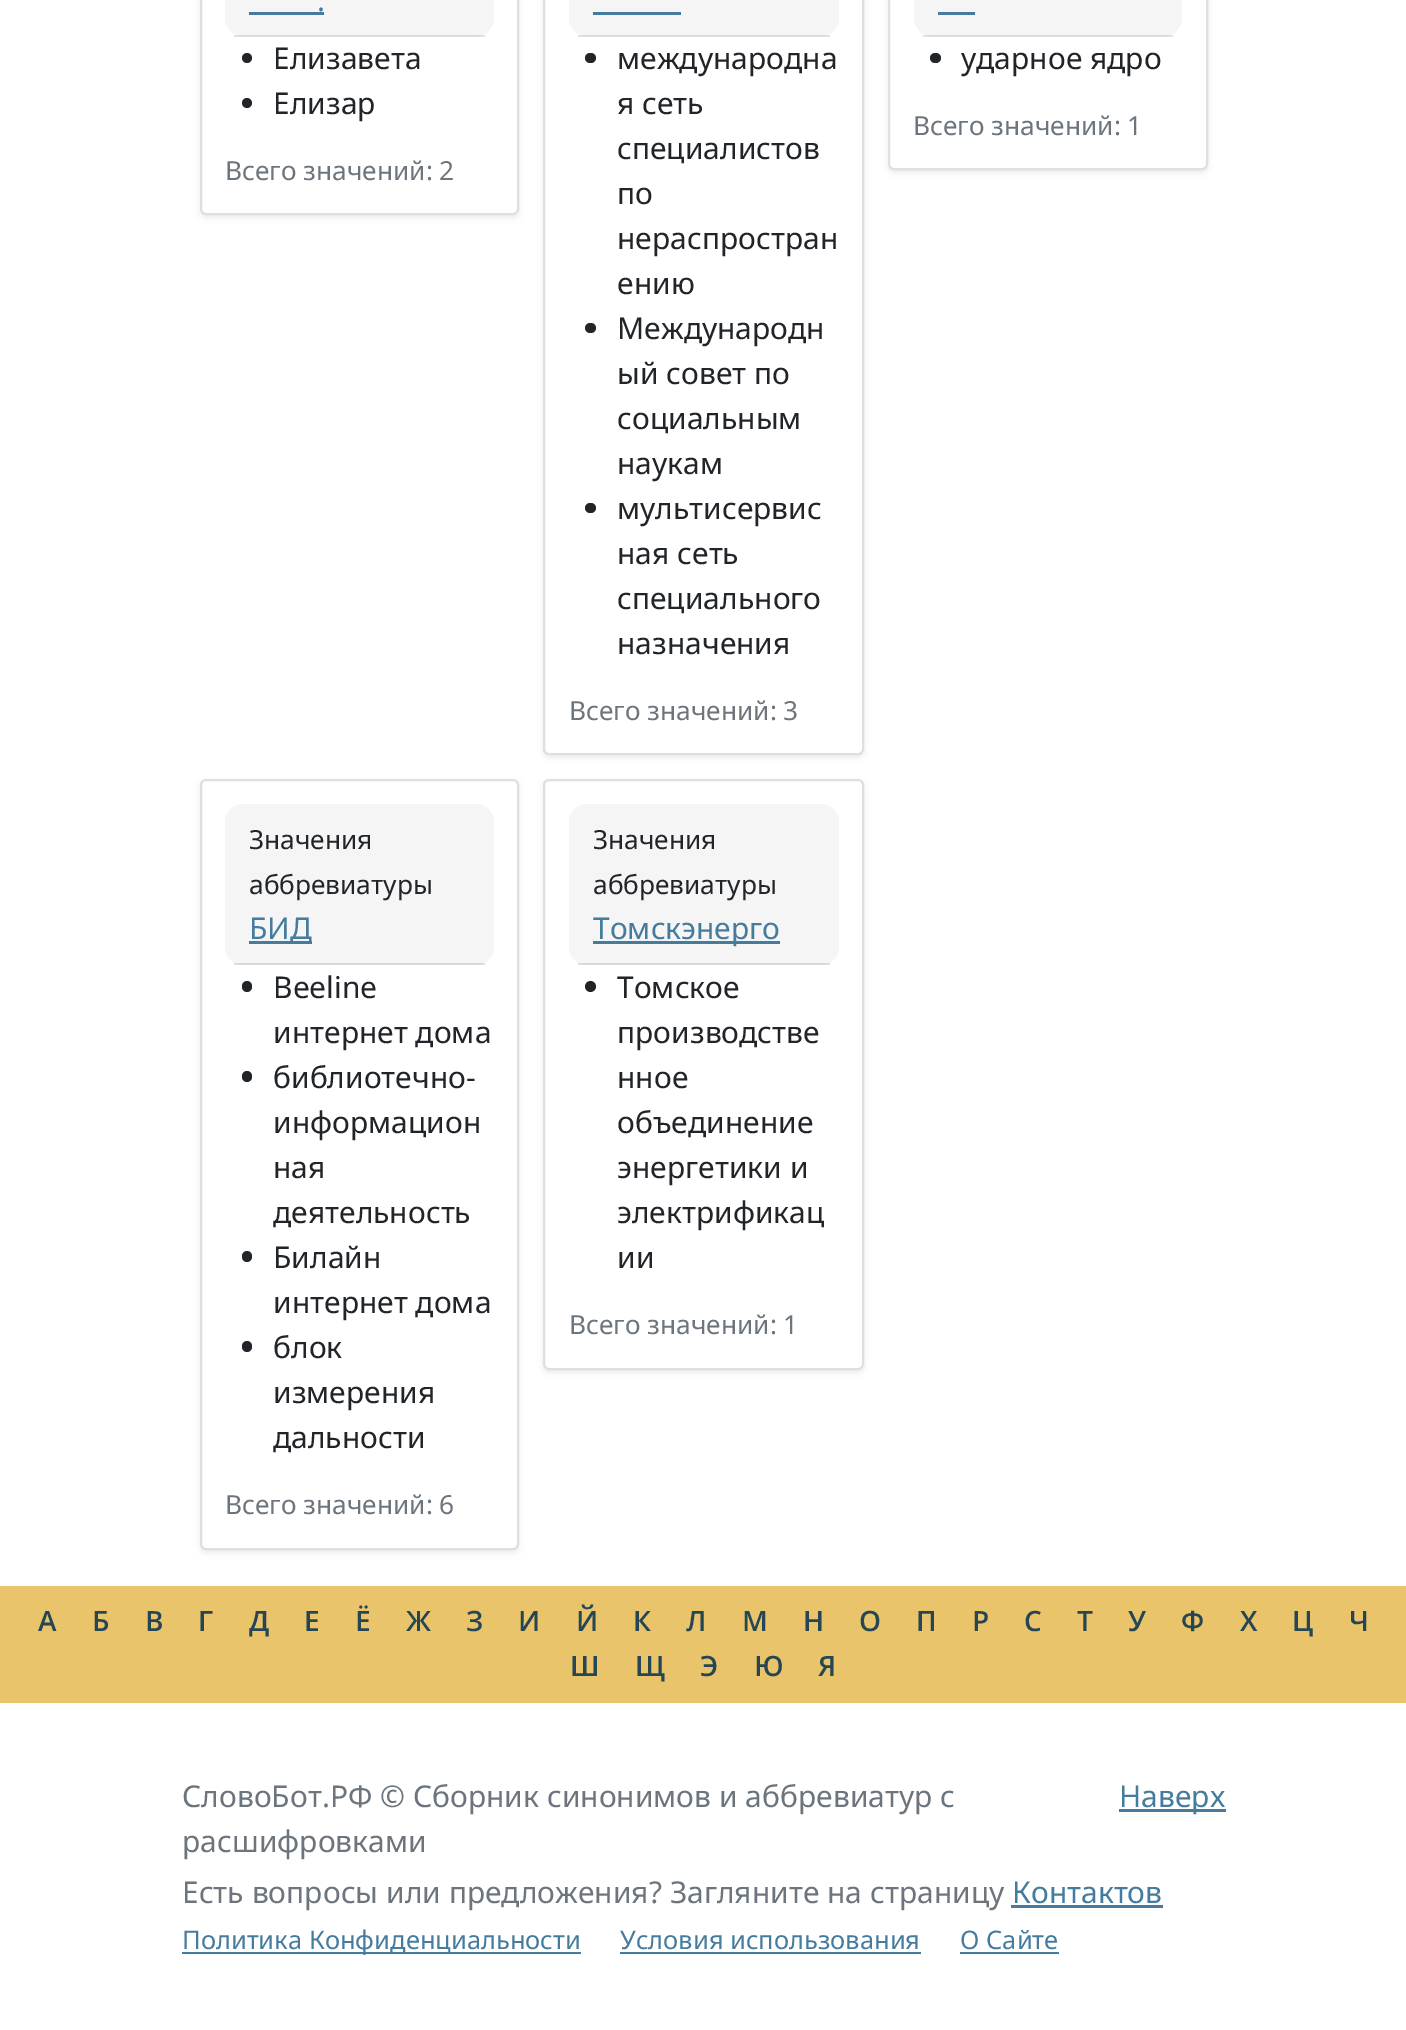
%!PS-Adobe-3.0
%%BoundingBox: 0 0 1406 2030
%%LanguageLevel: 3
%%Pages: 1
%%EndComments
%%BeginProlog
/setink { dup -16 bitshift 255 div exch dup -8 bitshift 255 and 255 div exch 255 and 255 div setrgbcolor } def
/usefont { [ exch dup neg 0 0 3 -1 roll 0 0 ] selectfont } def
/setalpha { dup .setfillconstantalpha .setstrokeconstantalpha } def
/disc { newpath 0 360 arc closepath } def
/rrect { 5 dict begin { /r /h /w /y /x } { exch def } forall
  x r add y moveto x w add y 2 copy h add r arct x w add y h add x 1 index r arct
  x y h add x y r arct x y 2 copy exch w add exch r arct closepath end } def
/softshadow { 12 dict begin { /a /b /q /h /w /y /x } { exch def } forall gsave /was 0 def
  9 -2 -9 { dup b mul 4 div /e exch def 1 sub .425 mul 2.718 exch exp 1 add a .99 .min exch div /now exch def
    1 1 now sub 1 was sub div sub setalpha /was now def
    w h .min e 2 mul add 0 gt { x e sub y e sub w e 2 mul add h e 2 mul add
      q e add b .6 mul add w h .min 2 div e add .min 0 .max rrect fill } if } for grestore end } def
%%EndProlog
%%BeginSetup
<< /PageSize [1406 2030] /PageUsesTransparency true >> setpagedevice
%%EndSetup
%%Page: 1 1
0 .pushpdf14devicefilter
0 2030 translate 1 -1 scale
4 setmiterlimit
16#FFFFFF setink
0 0 1406 2030 rectfill
16#000000 setink
200 -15 319 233 6 3 0.07 softshadow
16#FFFFFF setink
201 -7 317 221 5 rrect gsave fill grestore
16#DFDFDF setink
2 setlinewidth
stroke
16#F5F5F5 setink
225 -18 269 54 18 rrect fill
0.12 setalpha
16#000000 setink
234 35 251 2 rectfill
/NotoSans-Regular 30 usefont
1 setalpha
16#457B9D setink
317 11 moveto (.) show
249 12 75 3 rectfill
16#212529 setink
247 58 5 disc fill
273 69 moveto (Елизавета) show
247 103 5 disc fill
273 114 moveto (Елизар) show
/NotoSans-Regular 26.25 usefont
16#6C757D setink
225 180 moveto (Всего значений: 2) show
16#000000 setink
543 -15 321 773 6 3 0.07 softshadow
16#FFFFFF setink
544 -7 319 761 5 rrect gsave fill grestore
16#DFDFDF setink
stroke
16#F5F5F5 setink
569 -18 270 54 18 rrect fill
0.12 setalpha
16#000000 setink
578 35 252 2 rectfill
1 setalpha
16#457B9D setink
593 12 88 3 rectfill
16#212529 setink
585 53 11 10 5 rrect fill
/NotoSans-Regular 30 usefont
[
    [(международна) 617 69]
    [(я сеть) 617 114]
    [(специалистов) 617 159]
    [(по) 617 204]
    [(нераспростран) 617 249]
    [(ению) 617 294]
] { aload pop moveto show } forall
585 323 11 10 5 rrect fill
[
    [(Международн) 617 339]
    [(ый совет по) 617 384]
    [(социальным) 617 429]
    [(наукам) 617 474]
] { aload pop moveto show } forall
585 503 11 10 5 rrect fill
[
    [(мультисервис) 617 519]
    [(ная сеть) 617 564]
    [(специального) 617 609]
    [(назначения) 617 654]
] { aload pop moveto show } forall
/NotoSans-Regular 26.25 usefont
16#6C757D setink
569 720 moveto (Всего значений: 3) show
16#000000 setink
888 -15 320 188 6 3 0.07 softshadow
16#FFFFFF setink
888 -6 320 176 6 rrect fill
0.12 setalpha
16#000000 setink
889 -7 318 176 5 rrect stroke
1 setalpha
16#F5F5F5 setink
914 -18 268 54 18 rrect fill
0.12 setalpha
16#000000 setink
923 35 250 2 rectfill
1 setalpha
16#457B9D setink
938 12 37 3 rectfill
16#212529 setink
930 53 11 10 5 rrect fill
/NotoSans-Regular 30 usefont
961 69 moveto (ударное ядро) show
/NotoSans-Regular 26.25 usefont
16#6C757D setink
913 135 moveto (Всего значений: 1) show
16#000000 setink
200 782 319 771 6 3 0.07 softshadow
16#FFFFFF setink
201 780 317 769 5 rrect gsave fill grestore
16#DFDFDF setink
stroke
16#F5F5F5 setink
225 804 269 161 18 rrect fill
0.12 setalpha
16#000000 setink
234 963 251 2 rectfill
1 setalpha
16#212529 setink
249 849 moveto (Значения) show
249 894 moveto (аббревиатуры) show
16#457B9D setink
249 941 63 3 rectfill
/NotoSans-Regular 30 usefont
249 939 moveto (БИД) show
16#212529 setink
242 981 10 11 5 rrect fill
273 998 moveto (Beeline) show
273 1043 moveto (интернет дома) show
242 1071 10 11 5 rrect fill
[
    [(библиотечно-) 273 1088]
    [(информацион) 273 1133]
    [(ная) 273 1178]
    [(деятельность) 273 1223]
] { aload pop moveto show } forall
242 1251 10 11 5 rrect fill
273 1268 moveto (Билайн) show
273 1313 moveto (интернет дома) show
242 1341 10 11 5 rrect fill
[
    [(блок) 273 1358]
    [(измерения) 273 1403]
    [(дальности) 273 1448]
] { aload pop moveto show } forall
/NotoSans-Regular 26.25 usefont
16#6C757D setink
225 1514 moveto (Всего значений: 6) show
16#000000 setink
543 782 321 591 6 3 0.07 softshadow
16#FFFFFF setink
544 780 319 589 5 rrect gsave fill grestore
16#DFDFDF setink
stroke
16#F5F5F5 setink
569 804 270 161 18 rrect fill
0.12 setalpha
16#000000 setink
578 963 252 2 rectfill
1 setalpha
16#212529 setink
593 849 moveto (Значения) show
593 894 moveto (аббревиатуры) show
16#457B9D setink
593 941 187 3 rectfill
/NotoSans-Regular 30 usefont
593 939 moveto (Томскэнерго) show
16#212529 setink
590.5 986.5 5.5 disc fill
[
    [(Томское) 617 998]
    [(производстве) 617 1043]
    [(нное) 617 1088]
    [(объединение) 617 1133]
    [(энергетики и) 617 1178]
    [(электрификац) 617 1223]
    [(ии) 617 1268]
] { aload pop moveto show } forall
/NotoSans-Regular 26.25 usefont
16#6C757D setink
569 1334 moveto (Всего значений: 1) show
16#E9C46A setink
0 1586 1406 117 rectfill
/OpenSans-SemiBold 28 usefont
16#264653 setink
[
    [(А) 38 1631]
    [(Б) 92 1631]
    [(В) 145 1631]
    [(Г) 198 1631]
    [(Д) 249 1631]
    [(Е) 304 1631]
    [(Ё) 355 1631]
    [(Ж) 406 1631]
    [(З) 466 1631]
    [(И) 518 1631]
    [(Й) 576 1631]
    [(К) 633 1631]
    [(Л) 686 1631]
    [(М) 742 1631]
    [(Н) 803 1631]
    [(О) 859 1631]
    [(П) 916 1631]
    [(Р) 972 1631]
    [(С) 1024 1631]
    [(Т) 1077 1631]
    [(У) 1128 1631]
    [(Ф) 1181 1631]
    [(Х) 1240 1631]
    [(Ц) 1292 1631]
    [(Ч) 1349 1631]
    [(Ш) 570 1676]
    [(Щ) 635 1676]
    [(Э) 700 1676]
    [(Ю) 754 1676]
    [(Я) 818 1676]
] { aload pop moveto show } forall
/NotoSans-Regular 30 usefont
16#6C757D setink
182 1807 moveto (СловоБот.РФ © Сборник синонимов и аббревиатур с) show
182 1852 moveto (расшифровками) show
16#457B9D setink
1119 1809 107 3 rectfill
1119 1807 moveto (Наверх) show
16#6C757D setink
182 1903 moveto (Есть вопросы или предложения? Загляните на страницу) show
16#457B9D setink
1012 1903 moveto (Контактов) show
1011 1905 152 3 rectfill
182 1952 399 2 rectfill
/NotoSans-Regular 25.5 usefont
182 1949 moveto (Политика Конфиденциальности) show
620 1949 moveto (Условия использования) show
620 1952 301 2 rectfill
960 1949 moveto (О Сайте) show
960 1952 99 2 rectfill
.poppdf14devicefilter showpage
%%EOF
